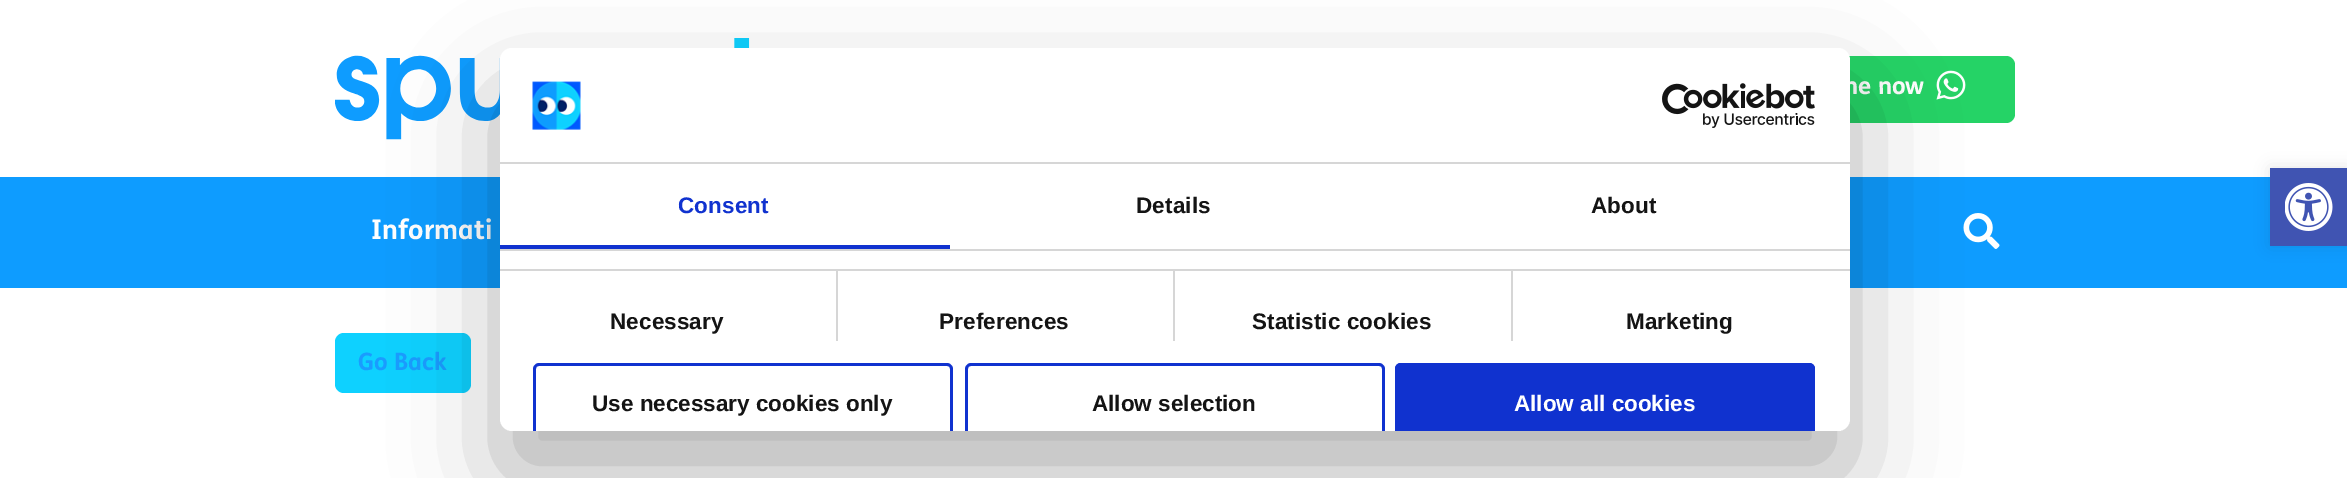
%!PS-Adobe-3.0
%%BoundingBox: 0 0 2347 478
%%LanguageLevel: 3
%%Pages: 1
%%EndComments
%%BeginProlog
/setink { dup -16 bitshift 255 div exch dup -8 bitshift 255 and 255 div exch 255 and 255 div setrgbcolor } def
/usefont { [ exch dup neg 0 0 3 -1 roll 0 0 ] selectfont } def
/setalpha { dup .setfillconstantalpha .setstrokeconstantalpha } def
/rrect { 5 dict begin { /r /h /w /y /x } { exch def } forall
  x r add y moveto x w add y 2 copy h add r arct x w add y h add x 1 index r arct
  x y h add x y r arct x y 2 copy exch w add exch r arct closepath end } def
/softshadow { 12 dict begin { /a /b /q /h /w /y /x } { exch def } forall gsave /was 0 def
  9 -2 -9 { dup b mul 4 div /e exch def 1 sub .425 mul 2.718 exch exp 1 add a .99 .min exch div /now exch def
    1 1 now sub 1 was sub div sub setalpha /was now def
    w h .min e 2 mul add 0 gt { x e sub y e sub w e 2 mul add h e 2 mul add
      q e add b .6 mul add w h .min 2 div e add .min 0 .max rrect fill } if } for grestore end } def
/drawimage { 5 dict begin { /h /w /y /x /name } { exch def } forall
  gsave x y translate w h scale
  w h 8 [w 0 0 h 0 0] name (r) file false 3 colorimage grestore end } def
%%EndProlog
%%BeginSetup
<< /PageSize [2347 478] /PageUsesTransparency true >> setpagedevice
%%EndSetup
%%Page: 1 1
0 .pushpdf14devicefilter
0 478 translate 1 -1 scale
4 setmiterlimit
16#FFFFFF setink
0 0 2347 478 rectfill
(img1.raw) 335 38 415 102 drawimage
16#25D366 setink
1640 56 375 67 9 rrect fill
/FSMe-Bold 24 usefont
16#FFFFFF setink
1844 94 moveto (ne now) show
(img2.raw) 1936 70 30 30 drawimage
16#0E9CFF setink
0 177 2347 111 rectfill
/FSMe-Bold 27 usefont
16#FFFFFF setink
371 239 moveto (Informati) show
(img3.raw) 1963 213 37 36 drawimage
16#0ED1FF setink
335 333 136 60 9 rrect fill
/FSMe-Bold 24 usefont
16#1A9CFF setink
358 370 moveto (Go Back) show
16#000000 setink
2270 168 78 78 0 7.5 0.1 softshadow
16#4054B2 setink
2270 168 77 78 rectfill
(img4.raw) 2285 183 48 48 drawimage
16#000000 setink
500 96 1350 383 12 51 0.3 softshadow
16#FFFFFF setink
500 48 1350 383 12 rrect fill
16#D6D6D6 setink
500 162 1350 2 rectfill
(img5.raw) 532 81 49 49 drawimage
(img6.raw) 1662 83 153 45 drawimage
500 249 1350 2 rectfill
16#1032CF setink
500 245 450 4 rectfill
/LiberationSans-Bold 22.5 usefont
678 213 moveto 0.1 0 (Consent) ashow
16#141414 setink
1136 213 moveto 0.1 0 (Details) ashow
1591 213 moveto 0.1 0 (About) ashow
[
    [836 270 2 71 16#D6D6D6]
    [1173 270 2 71 16#D6D6D6]
    [1511 270 2 71 16#D6D6D6]
    [500 269 1350 2 16#D6D6D6]
] { aload pop setink rectfill } forall
16#141414 setink
610 329 moveto 0.1 0 (Necessary) ashow
939 329 moveto 0.1 0 (Preferences) ashow
1252 329 moveto 0.1 0 (Statistic cookies) ashow
1626 329 moveto 0.1 0 (Marketing) ashow
16#1032CF setink
539 363 moveto 536 363 533 366 533 369 curveto 533 431 lineto 536 431 lineto 536 369 lineto 536 367 537 366 539 366 curveto 947 366 lineto 949 366 950 367 950 369 curveto 950 431 lineto 953 431 lineto 953 369 lineto 953 366 950 363 947 363 curveto closepath fill
16#141414 setink
592 411 moveto (Use necessary cookies only) show
16#1032CF setink
971 363 moveto 968 363 965 366 965 369 curveto 965 431 lineto 968 431 lineto 968 369 lineto 968 367 969 366 971 366 curveto 1379 366 lineto 1381 366 1382 367 1382 369 curveto 1382 431 lineto 1385 431 lineto 1385 369 lineto 1385 366 1382 363 1379 363 curveto closepath fill
16#141414 setink
1092 411 moveto (Allow selection) show
16#1032CF setink
1401 363 moveto 1809 363 lineto 1812.5 363 1815 365.5 1815 369 curveto 1815 431 lineto 1395 431 lineto 1395 369 lineto 1395 365.5 1397.5 363 1401 363 curveto closepath fill
1401 363 moveto 1398 363 1395 366 1395 369 curveto 1395 431 lineto 1398 431 lineto 1398 369 lineto 1398 367 1399 366 1401 366 curveto 1809 366 lineto 1811 366 1812 367 1812 369 curveto 1812 431 lineto 1815 431 lineto 1815 369 lineto 1815 366 1812 363 1809 363 curveto closepath fill
16#FFFFFF setink
1514 411 moveto (Allow all cookies) show
1839 430 2 1 rectfill
.poppdf14devicefilter showpage
%%EOF
